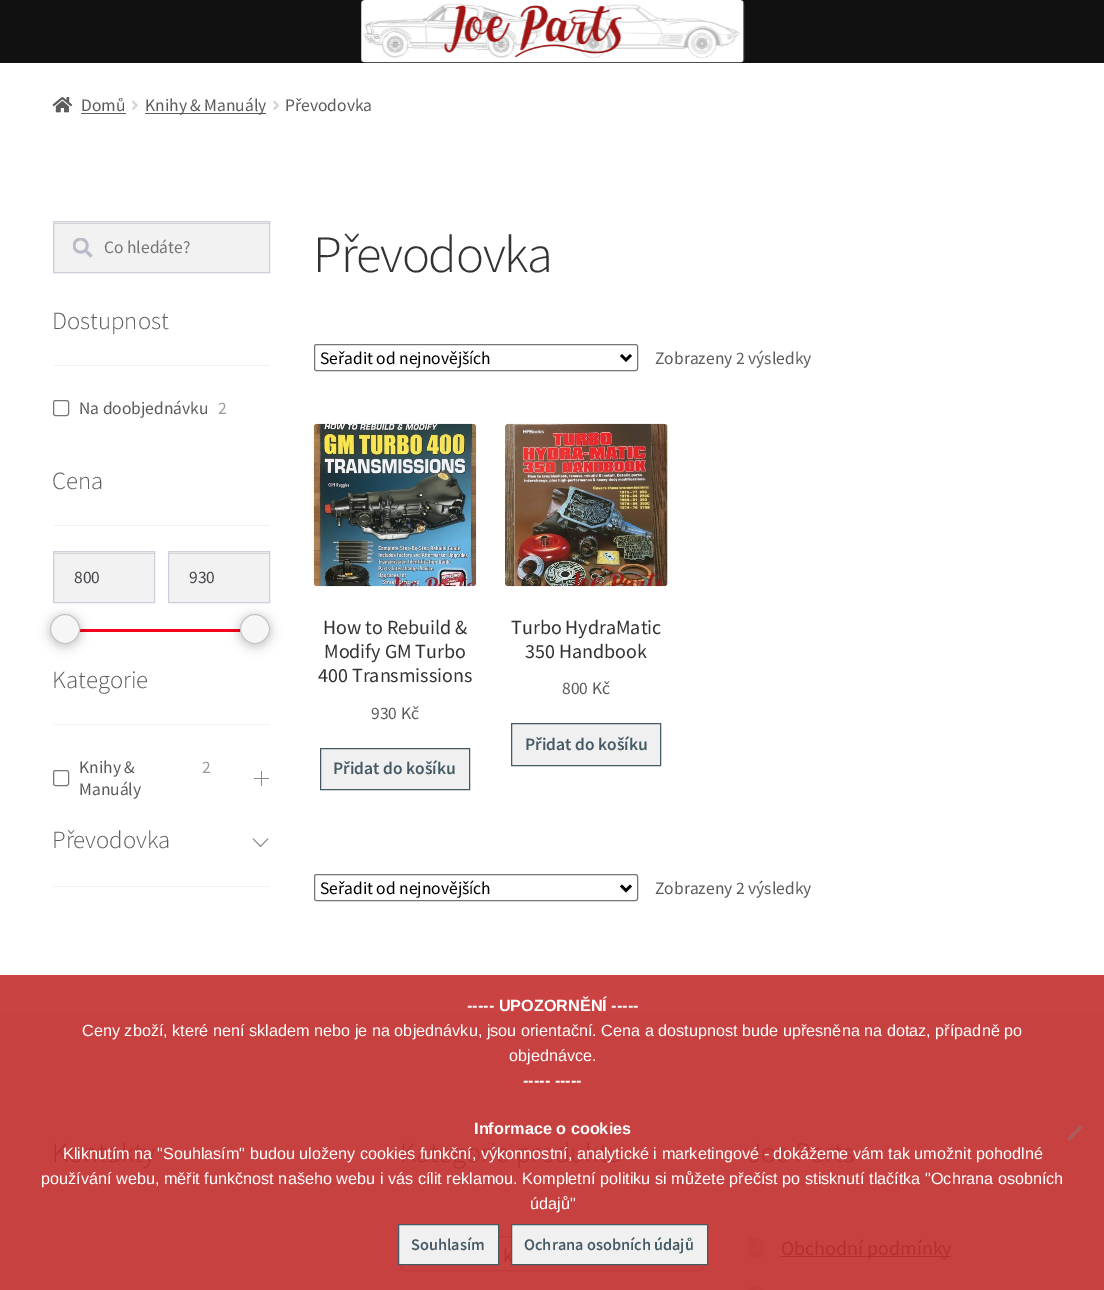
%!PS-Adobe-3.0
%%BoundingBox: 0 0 1104 1290
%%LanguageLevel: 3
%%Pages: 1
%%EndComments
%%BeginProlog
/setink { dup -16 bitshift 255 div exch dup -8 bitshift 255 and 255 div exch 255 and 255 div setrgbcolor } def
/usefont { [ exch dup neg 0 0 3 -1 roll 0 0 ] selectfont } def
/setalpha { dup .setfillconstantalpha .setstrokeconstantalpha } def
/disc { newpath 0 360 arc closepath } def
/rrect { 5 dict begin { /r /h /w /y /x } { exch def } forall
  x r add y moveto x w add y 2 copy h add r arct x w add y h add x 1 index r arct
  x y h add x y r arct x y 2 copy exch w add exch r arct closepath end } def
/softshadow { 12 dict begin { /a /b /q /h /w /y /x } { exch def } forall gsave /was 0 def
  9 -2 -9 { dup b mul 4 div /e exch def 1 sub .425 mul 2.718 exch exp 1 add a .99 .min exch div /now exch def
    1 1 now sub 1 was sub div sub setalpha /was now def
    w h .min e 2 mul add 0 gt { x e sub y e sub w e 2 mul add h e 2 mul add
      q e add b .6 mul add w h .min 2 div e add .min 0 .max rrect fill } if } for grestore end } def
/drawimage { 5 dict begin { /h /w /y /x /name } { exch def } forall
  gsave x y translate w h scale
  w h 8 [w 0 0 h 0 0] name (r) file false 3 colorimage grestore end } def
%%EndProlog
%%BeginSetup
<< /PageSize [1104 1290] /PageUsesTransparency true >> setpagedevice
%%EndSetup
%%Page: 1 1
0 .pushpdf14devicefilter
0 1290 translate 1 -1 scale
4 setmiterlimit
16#FFFFFF setink
0 0 1104 1290 rectfill
16#CA4242 setink
0 975 1104 38 rectfill
16#111111 setink
0 0 1104 63 rectfill
(img1.raw) 361 0 384 63 drawimage
(img2.raw) 52 97 21 16 drawimage
/SourceSansPro-Regular 17.5 usefont
16#5B5B5B setink
81 111 moveto (Domů) show
81 113 45 1 rectfill
(img3.raw) 132 100 6 10 drawimage
145 113 121 1 rectfill
145 111 moveto (Knihy & Manuály) show
(img4.raw) 273 100 7 10 drawimage
285 111 moveto (Převodovka) show
16#F2F2F2 setink
54 222 215 50 rectfill
16#D4D4D4 setink
54 223 215 1 rectfill
16#CCD0DC setink
53.5 221.5 216 51 rectstroke
(img5.raw) 73 238 20 20 drawimage
16#757575 setink
104 253 moveto (Co hledáte?) show
16#F2F2F2 setink
53 365 217 1 rectfill
/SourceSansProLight-Light 24.75 usefont
16#5B5B5B setink
52 329 moveto (Dostupnost) show
16#767676 setink
53.5 400.5 15 15 2 rrect stroke
/SourceSansPro-Regular 17.5 usefont
16#5B5B5B setink
79 414 moveto (Na doobjednávku) show
16#9A9A9A setink
218 414 moveto (2) show
16#F2F2F2 setink
53 525 217 1 rectfill
/SourceSansProLight-Light 24.75 usefont
16#5B5B5B setink
52 489 moveto (Cena) show
16#F2F2F2 setink
54 552 100 50 rectfill
16#D4D4D4 setink
54 553 100 1 rectfill
16#CCD0DC setink
53.5 551.5 101 51 rectstroke
/SourceSansPro-Regular 17.5 usefont
16#43454B setink
74 583 moveto (800) show
16#F2F2F2 setink
169 552 100 50 rectfill
16#D4D4D4 setink
169 553 100 1 rectfill
16#CCD0DC setink
168.5 551.5 101 51 rectstroke
16#43454B setink
189 583 moveto (930) show
16#F2041C setink
79 629 162 3 rectfill
16#000000 setink
50 616 30 30 15 5.5 0.23 softshadow
16#F6F6F6 setink
65 629 14.5 disc gsave fill grestore
16#C5C5C5 setink
stroke
16#000000 setink
240 616 30 30 15 5.5 0.23 softshadow
16#F6F6F6 setink
255 629 14.5 disc gsave fill grestore
16#C5C5C5 setink
stroke
16#F2F2F2 setink
53 724 217 1 rectfill
/SourceSansProLight-Light 24.75 usefont
16#5B5B5B setink
52 688 moveto (Kategorie) show
16#767676 setink
53.5 770.5 15 15 2 rrect stroke
/SourceSansPro-Regular 17.5 usefont
16#5B5B5B setink
79 773 moveto (Knihy &) show
79 795 moveto (Manuály) show
16#9A9A9A setink
202 773 moveto (2) show
[
    [261 771 1 15 16#8A8A8A]
    [254 778 15 1 16#8A8A8A]
    [53 886 217 1 16#F2F2F2]
] { aload pop setink rectfill } forall
/SourceSansProLight-Light 24.75 usefont
16#5B5B5B setink
52 848 moveto (Převodovka) show
16#8A8A8A setink
260.5 847 moveto 252.5 839 lineto 253.5 838.5 lineto 261.5 846.5 lineto closepath fill
260.5 847 moveto 259.5 846.5 lineto 267.5 838.5 lineto 268.5 839 lineto closepath fill
/SourceSansProLight-Light 52.5 usefont
16#333333 setink
313 272 moveto -1.25 0 (Převodovka) ashow
16#767676 setink
314.5 344.5 323 26 2 rrect stroke
16#000000 setink
2.5 setlinewidth
621 355 moveto 626 360 lineto 631 355 lineto stroke
/SourceSansPro-Regular 17.5 usefont
320 364 moveto (Seřadit od nejnovějších) show
16#5B5B5B setink
655 364 moveto (Zobrazeny 2 výsledky) show
(img6.raw) 313 423 164 164 drawimage
/SourceSansPro-Regular 20 usefont
16#333333 setink
[
    [(How to Rebuild &) 323 634]
    [(Modify GM Turbo) 324 658]
    [(400 Transmissions) 318 682]
] { aload pop moveto show } forall
/SourceSansPro-Regular 17.5 usefont
16#5B5B5B setink
371 719 moveto (930 Kč) show
16#F0F0F0 setink
320.5 748.5 moveto 469.5 748.5 lineto 469.5 789.5 lineto 320.5 789.5 lineto closepath gsave fill grestore
16#455A64 setink
1 setlinewidth
stroke
/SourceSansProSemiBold-SemiBold 17.5 usefont
333 774 moveto (Přidat do košíku) show
(img7.raw) 505 423 163 164 drawimage
/SourceSansPro-Regular 20 usefont
16#333333 setink
511 634 moveto (Turbo HydraMatic) show
525 658 moveto (350 Handbook) show
/SourceSansPro-Regular 17.5 usefont
16#5B5B5B setink
562 694 moveto (800 Kč) show
16#F0F0F0 setink
511.5 723.5 moveto 660.5 723.5 lineto 660.5 765.5 lineto 511.5 765.5 lineto closepath gsave fill grestore
16#455A64 setink
stroke
/SourceSansProSemiBold-SemiBold 17.5 usefont
525 750 moveto (Přidat do košíku) show
16#767676 setink
314.5 874.5 323 26 2 rrect stroke
16#000000 setink
2.5 setlinewidth
621 885.5 moveto 626 890.5 lineto 631 885.5 lineto stroke
/SourceSansPro-Regular 17.5 usefont
320 894 moveto (Seřadit od nejnovějších) show
16#5B5B5B setink
655 894 moveto (Zobrazeny 2 výsledky) show
16#C84141 setink
0 1013 1104 277 rectfill
/SourceSansProLight-Light 28.25 usefont
16#B62E2E setink
52 1162 moveto (Kontakty) show
400 1162 moveto (Kategorie produktu) show
16#C13A3A setink
1 setlinewidth
400.5 1236.5 304 34 4.5 rrect stroke
/SourceSansPro-Regular 20 usefont
16#B62E2E setink
503 1262 moveto (k) show
/SourceSansProLight-Light 28.25 usefont
748 1162 moveto (Joe Parts) show
(img8.raw) 748 1237 16 21 drawimage
780 1256 171 1 rectfill
/SourceSansPro-Regular 20 usefont
781 1255 moveto (Obchodní podmínky) show
(img9.raw) 748 1286 15 4 drawimage
/LiberationSans-Bold 16.25 usefont
16#FFFFFF setink
467 1011 moveto (----- UPOZORNĚNÍ -----) show
/LiberationSans-Regular 16.25 usefont
82 1036 moveto (Ceny zboží, které není skladem nebo je na objednávku, jsou orientační. Cena a dostupnost bude upřesněna na dotaz, případně po) show
509 1061 moveto (objednávce.) show
/LiberationSans-Bold 16.25 usefont
523 1086 moveto (----- -----) show
474 1134 moveto (Informace o cookies) show
/LiberationSans-Regular 16.25 usefont
[
    [(Kliknutím na "Souhlasím" budou uloženy cookies funkční, výkonnostní, analytické i marketingové - dokážeme vám tak umožnit pohodlné) 63 1159]
    [(používání webu, měřit funkčnost našeho webu i vás cílit reklamou. Kompletní politiku si můžete přečíst po stisknutí tlačítka "Ochrana osobních) 41 1184]
    [(údajů") 530 1209]
] { aload pop moveto show } forall
16#A46060 setink
1080.5 1125.5 moveto 1082.5 1127 lineto 1069.5 1140.5 lineto 1067.5 1138.5 lineto closepath fill
16#F0F0F0 setink
398.5 1224.5 moveto 498.5 1224.5 lineto 498.5 1264.5 lineto 398.5 1264.5 lineto closepath gsave fill grestore
16#455A64 setink
stroke
/SourceSansProSemiBold-SemiBold 16.25 usefont
411 1250 moveto (Souhlasím) show
16#F0F0F0 setink
511.5 1224.5 moveto 707.5 1224.5 lineto 707.5 1264.5 lineto 511.5 1264.5 lineto closepath gsave fill grestore
16#455A64 setink
stroke
524 1250 moveto (Ochrana osobních údajů) show
.poppdf14devicefilter showpage
%%EOF
